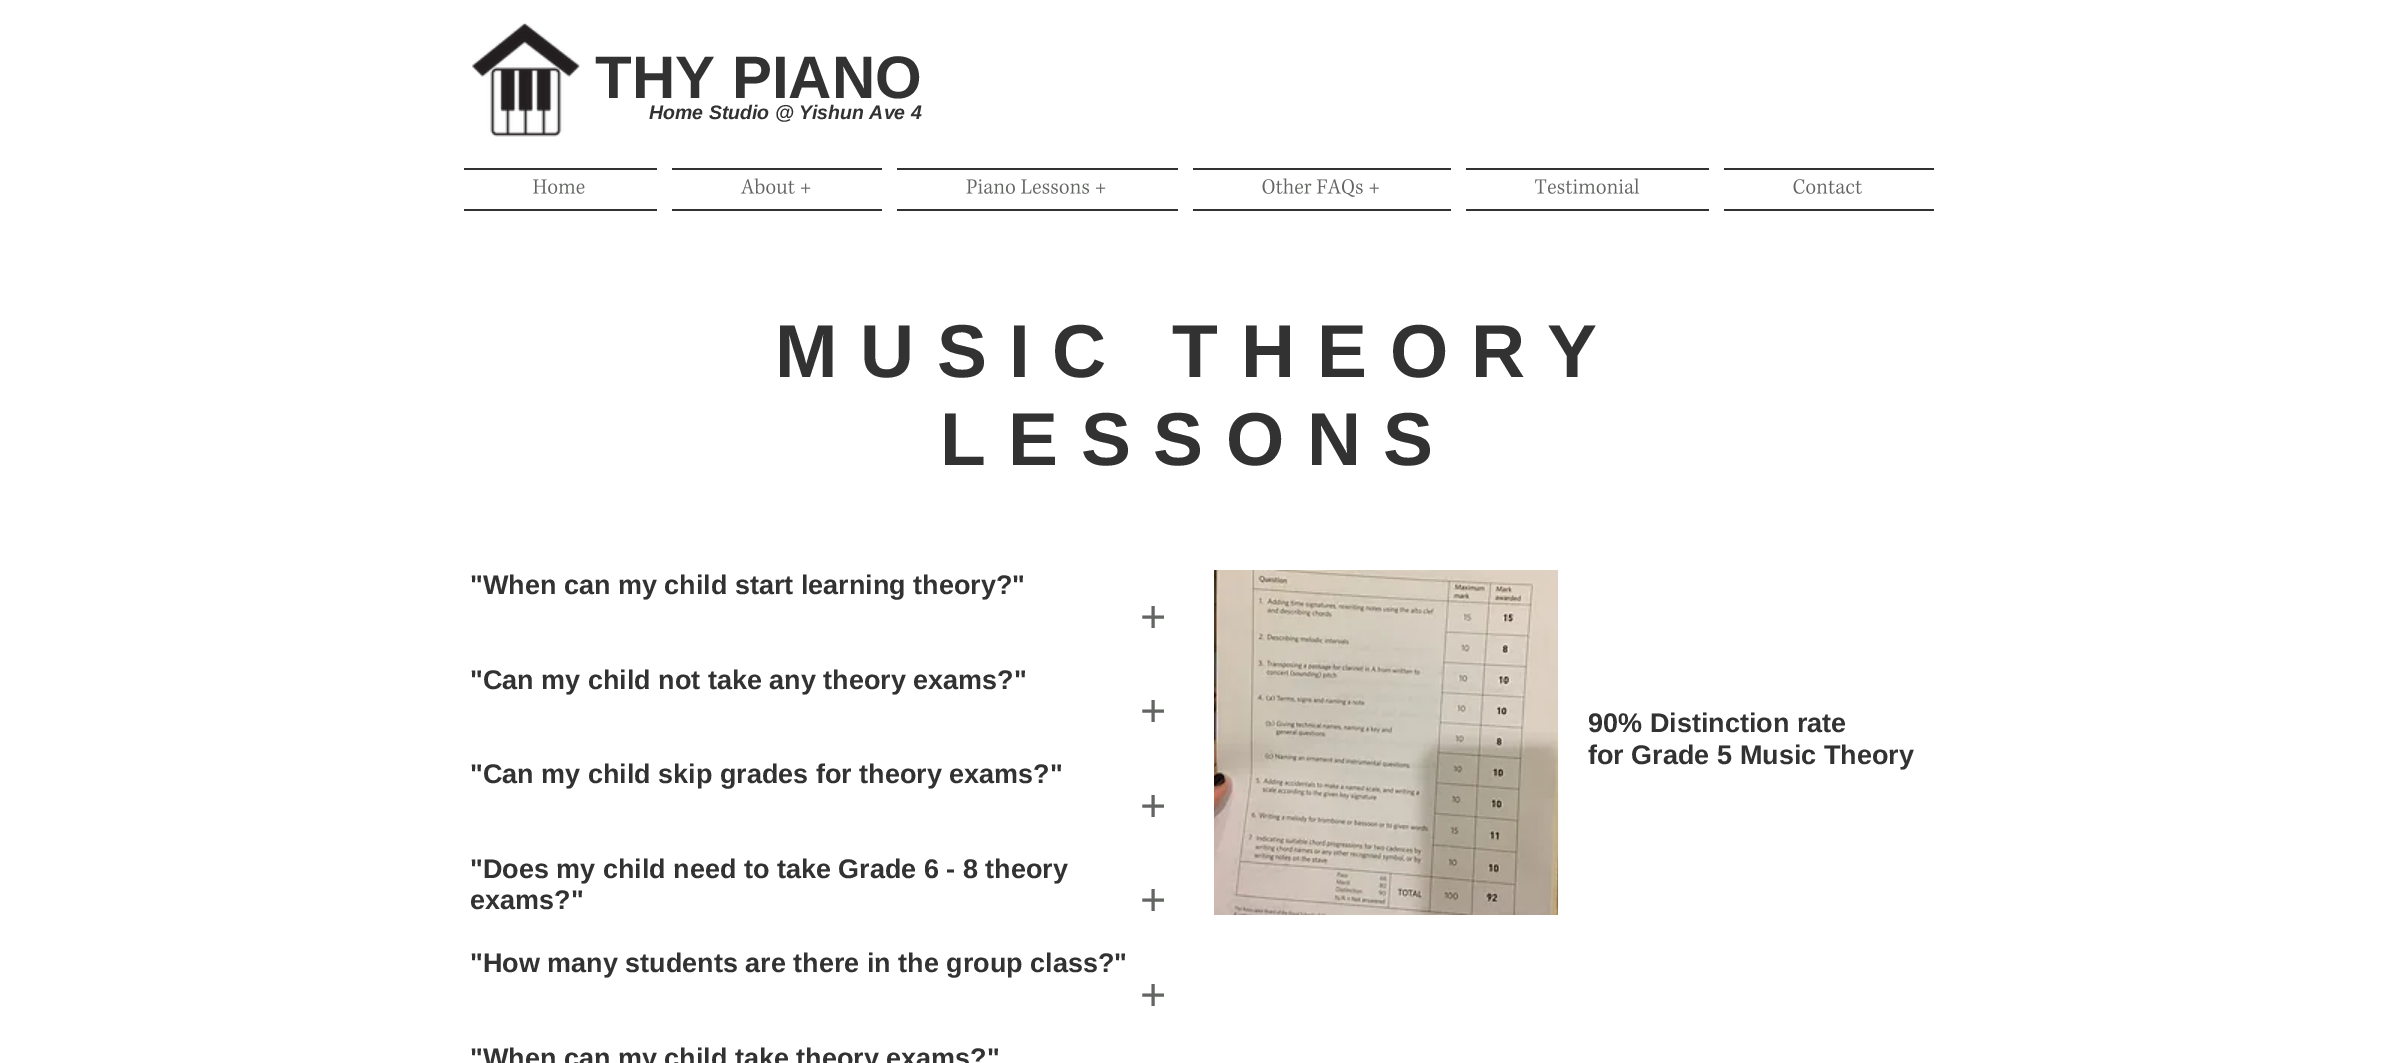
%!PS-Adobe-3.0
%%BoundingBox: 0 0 2395 1063
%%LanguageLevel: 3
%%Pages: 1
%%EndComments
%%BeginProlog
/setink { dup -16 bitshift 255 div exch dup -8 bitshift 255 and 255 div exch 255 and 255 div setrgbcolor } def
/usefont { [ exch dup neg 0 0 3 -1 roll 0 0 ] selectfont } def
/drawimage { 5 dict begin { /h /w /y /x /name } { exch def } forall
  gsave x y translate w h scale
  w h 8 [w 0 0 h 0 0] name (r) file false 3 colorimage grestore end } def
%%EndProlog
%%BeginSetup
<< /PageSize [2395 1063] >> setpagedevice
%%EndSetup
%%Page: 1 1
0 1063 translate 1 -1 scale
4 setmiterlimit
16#FFFFFF setink
0 0 2395 1063 rectfill
(img1.raw) 472 23 108 114 drawimage
/LiberationSans-Bold 60 usefont
16#313231 setink
595 98 moveto (THY PIANO) show
/LiberationSans-BoldItalic 19.5 usefont
649 119 moveto (Home Studio @ Yishun Ave 4) show
464 168 193 2 rectfill
464 209 193 2 rectfill
(img2.raw) 533 179 52 15 drawimage
672 168 210 2 rectfill
672 209 210 2 rectfill
(img3.raw) 740 178 71 16 drawimage
897 168 281 2 rectfill
897 209 281 2 rectfill
(img4.raw) 966 179 140 15 drawimage
1193 168 258 2 rectfill
1193 209 258 2 rectfill
(img5.raw) 1262 178 117 19 drawimage
1466 168 243 2 rectfill
1466 209 243 2 rectfill
(img6.raw) 1535 178 105 16 drawimage
1724 168 210 2 rectfill
1724 209 210 2 rectfill
(img7.raw) 1793 179 69 15 drawimage
/LiberationSans-Bold 75 usefont
775 377 moveto 22.5 0 (MUSIC THEORY) ashow
940 465 moveto 22.5 0 (LESSONS) ashow
/LiberationSans-Bold 27 usefont
470 594 moveto ("When can my child start learning theory?") show
/LiberationSans-Regular 45 usefont
16#626562 setink
1140 632 moveto (+) show
/LiberationSans-Bold 27 usefont
16#313231 setink
470 689 moveto ("Can my child not take any theory exams?") show
/LiberationSans-Regular 45 usefont
16#626562 setink
1140 726 moveto (+) show
(img8.raw) 1214 570 345 345 drawimage
/LiberationSans-Bold 27 usefont
16#313231 setink
[
    [(90% Distinction rate) 1588 732]
    [(for Grade 5 Music Theory) 1588 764]
    [("Can my child skip grades for theory exams?") 470 783]
] { aload pop moveto show } forall
/LiberationSans-Regular 45 usefont
16#626562 setink
1140 821 moveto (+) show
/LiberationSans-Bold 27 usefont
16#313231 setink
470 878 moveto ("Does my child need to take Grade 6 - 8 theory) show
470 909 moveto (exams?") show
/LiberationSans-Regular 45 usefont
16#626562 setink
1140 915 moveto (+) show
/LiberationSans-Bold 27 usefont
16#313231 setink
470 972 moveto ("How many students are there in the group class?") show
/LiberationSans-Regular 45 usefont
16#626562 setink
1140 1010 moveto (+) show
/LiberationSans-Bold 27 usefont
16#313231 setink
470 1067 moveto ("When can my child take theory exams?") show
showpage
%%EOF
